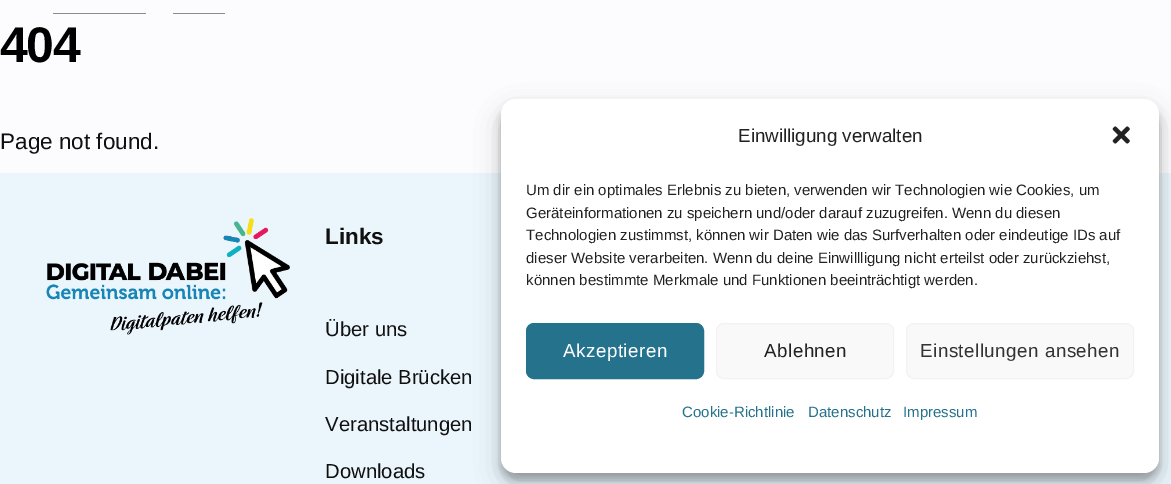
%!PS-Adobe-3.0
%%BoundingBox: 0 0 1171 484
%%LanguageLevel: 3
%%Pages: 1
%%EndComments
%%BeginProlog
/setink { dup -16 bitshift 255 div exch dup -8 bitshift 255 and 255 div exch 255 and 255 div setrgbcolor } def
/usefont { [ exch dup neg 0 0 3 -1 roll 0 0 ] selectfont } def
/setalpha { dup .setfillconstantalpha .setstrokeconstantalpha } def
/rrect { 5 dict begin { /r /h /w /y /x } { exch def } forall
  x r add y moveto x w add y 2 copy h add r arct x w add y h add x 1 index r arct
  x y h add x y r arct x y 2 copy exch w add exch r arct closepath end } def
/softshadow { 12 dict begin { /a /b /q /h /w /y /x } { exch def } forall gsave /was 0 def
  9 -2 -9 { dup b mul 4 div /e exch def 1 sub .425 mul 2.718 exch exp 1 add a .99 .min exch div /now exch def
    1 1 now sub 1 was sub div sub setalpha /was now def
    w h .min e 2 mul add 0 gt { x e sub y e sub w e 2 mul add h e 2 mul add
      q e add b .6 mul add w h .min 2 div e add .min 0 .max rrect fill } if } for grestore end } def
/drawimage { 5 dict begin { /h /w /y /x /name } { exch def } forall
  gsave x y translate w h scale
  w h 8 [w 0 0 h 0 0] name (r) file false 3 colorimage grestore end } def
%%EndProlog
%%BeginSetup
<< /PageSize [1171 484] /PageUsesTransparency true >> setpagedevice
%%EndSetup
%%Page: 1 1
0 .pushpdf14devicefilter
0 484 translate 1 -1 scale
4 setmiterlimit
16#FCFCFE setink
0 0 1171 484 rectfill
16#8B8B8B setink
53 13 93 1 rectfill
173 13 52 1 rectfill
/LiberationSans-Bold 50 usefont
16#000000 setink
0 62 moveto -1.5 0 (404) ashow
/LiberationSans-Regular 22.5 usefont
16#101010 setink
0 149 moveto (Page not found.) show
16#EAF5FC setink
0 173 1171 311 rectfill
(img1.raw) 46 218 244 117 drawimage
/LiberationSans-Bold 22.5 usefont
16#101010 setink
325 244 moveto (Links) show
/LiberationSans-Regular 20.25 usefont
[
    [(Über uns) 325 336]
    [(Digitale Brücken) 325 384]
    [(Veranstaltungen) 325 431]
    [(Downloads) 325 478]
] { aload pop moveto show } forall
16#000000 setink
501 106 658 374 15 4 0.23 softshadow
501 111 658 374 15 12.5 0.19 softshadow
16#FFFFFF setink
501 99 658 374 15 rrect fill
/LiberationSans-Regular 18.75 usefont
16#222222 setink
738 142 moveto (Einwilligung verwalten) show
(img2.raw) 1112 126 18 18 drawimage
/LiberationSans-Regular 15 usefont
[
    [(Um dir ein optimales Erlebnis zu bieten, verwenden wir Technologien wie Cookies, um) 526 195]
    [(Geräteinformationen zu speichern und/oder darauf zuzugreifen. Wenn du diesen) 526 218]
    [(Technologien zustimmst, können wir Daten wie das Surfverhalten oder eindeutige IDs auf) 526 240]
    [(dieser Website verarbeiten. Wenn du deine Einwillligung nicht erteilst oder zurückziehst,) 526 263]
    [(können bestimmte Merkmale und Funktionen beeinträchtigt werden.) 526 285]
] { aload pop moveto show } forall
16#24728C setink
526.5 323.5 177 55 7.5 rrect gsave fill grestore
stroke
/LiberationSans-Regular 18.75 usefont
16#FFFFFF setink
563 357 moveto 0.5 0 (Akzeptieren) ashow
16#F9F9F9 setink
716.5 323.5 177 55 7.5 rrect gsave fill grestore
16#F2F2F2 setink
stroke
16#222222 setink
764 357 moveto 0.5 0 (Ablehnen) ashow
16#F9F9F9 setink
906.5 323.5 227 55 7.5 rrect gsave fill grestore
16#F2F2F2 setink
stroke
16#333333 setink
920 357 moveto 0.5 0 (Einstellungen ansehen) ashow
/LiberationSans-Regular 15 usefont
16#24728C setink
[
    [(Cookie-Richtlinie) 682 417]
    [(Datenschutz) 808 417]
    [(Impressum) 903 417]
] { aload pop moveto show } forall
.poppdf14devicefilter showpage
%%EOF
